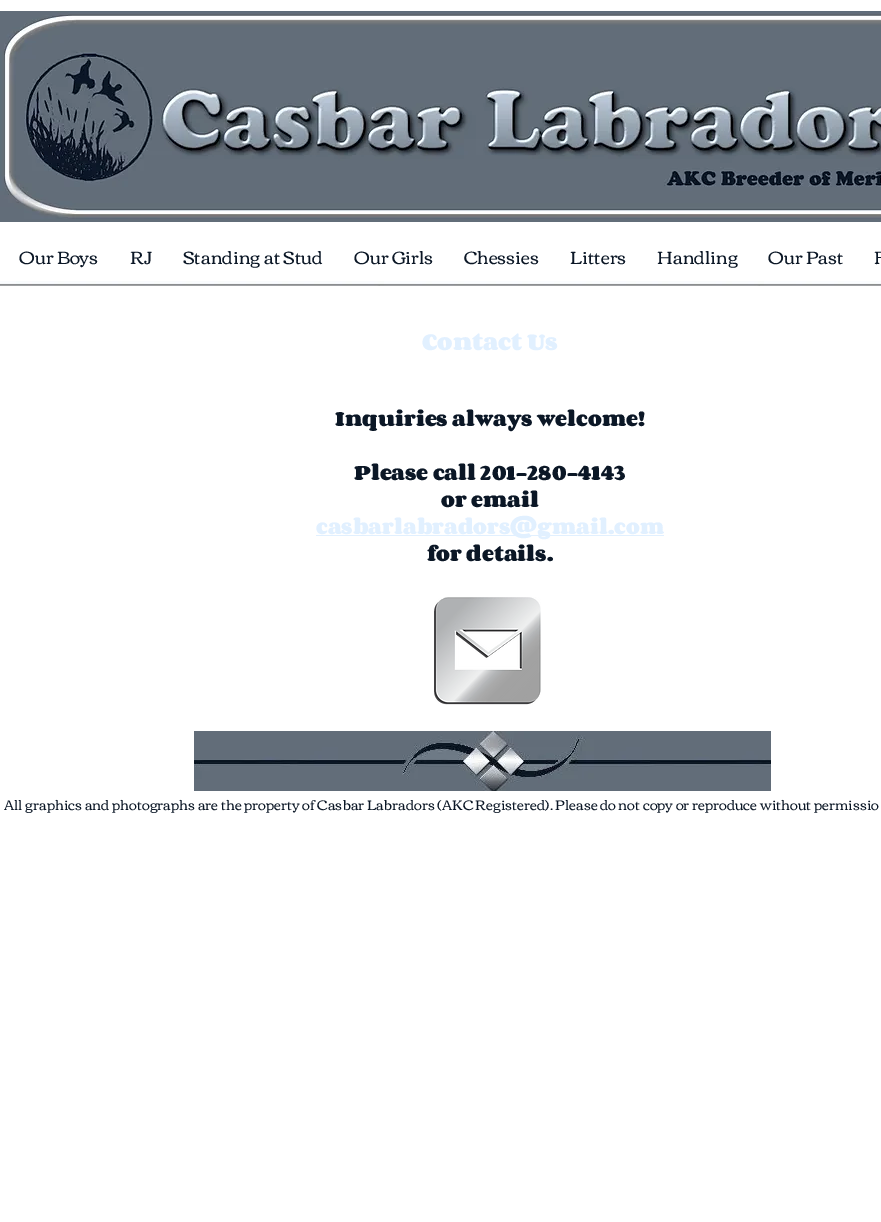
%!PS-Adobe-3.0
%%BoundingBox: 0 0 881 1222
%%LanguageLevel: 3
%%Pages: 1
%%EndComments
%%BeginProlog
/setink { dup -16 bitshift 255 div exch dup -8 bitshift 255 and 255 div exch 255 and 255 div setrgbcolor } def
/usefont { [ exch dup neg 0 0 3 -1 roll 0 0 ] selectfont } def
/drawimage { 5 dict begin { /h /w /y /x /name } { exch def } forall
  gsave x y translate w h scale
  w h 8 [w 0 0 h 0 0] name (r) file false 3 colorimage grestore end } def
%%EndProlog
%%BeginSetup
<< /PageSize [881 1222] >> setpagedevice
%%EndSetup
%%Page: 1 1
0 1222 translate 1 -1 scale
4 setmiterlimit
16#FFFFFF setink
0 0 881 1222 rectfill
(img1.raw) 0 11 881 211 drawimage
/Corben-Regular 18 usefont
16#0B1726 setink
[
    [(Our Boys) 19 264]
    [(RJ) 130 264]
    [(Standing at Stud) 183 264]
    [(Our Girls) 354 264]
    [(Chessies) 464 264]
    [(Litters) 570 264]
    [(Handling) 657 264]
    [(Our Past) 768 264]
    [(F) 874 264]
] { aload pop moveto show } forall
(img2.raw) 0 281 600 5 drawimage
(img3.raw) 600 281 281 5 drawimage
/Corben-Bold 20 usefont
16#E1F0FF setink
422 350 moveto (Contact Us) show
/Corben-Bold 18 usefont
16#0B1726 setink
[
    [(Inquiries always welcome!) 335 426]
    [(Please call 201-280-4143) 354 480]
    [(or email) 441 507]
] { aload pop moveto show } forall
16#E1F0FF setink
316 535 348 1 rectfill
316 534 moveto (casbarlabradors@gmail.com) show
16#0B1726 setink
427 561 moveto (for details.) show
(img4.raw) 434 597 107 108 drawimage
(img5.raw) 194 731 577 60 drawimage
/Corben-Regular 14 usefont
4 810 moveto (All graphics and photographs are the property of Casbar Labradors \(AKC Registered\). Please do not copy or reproduce without permissio) show
showpage
%%EOF
